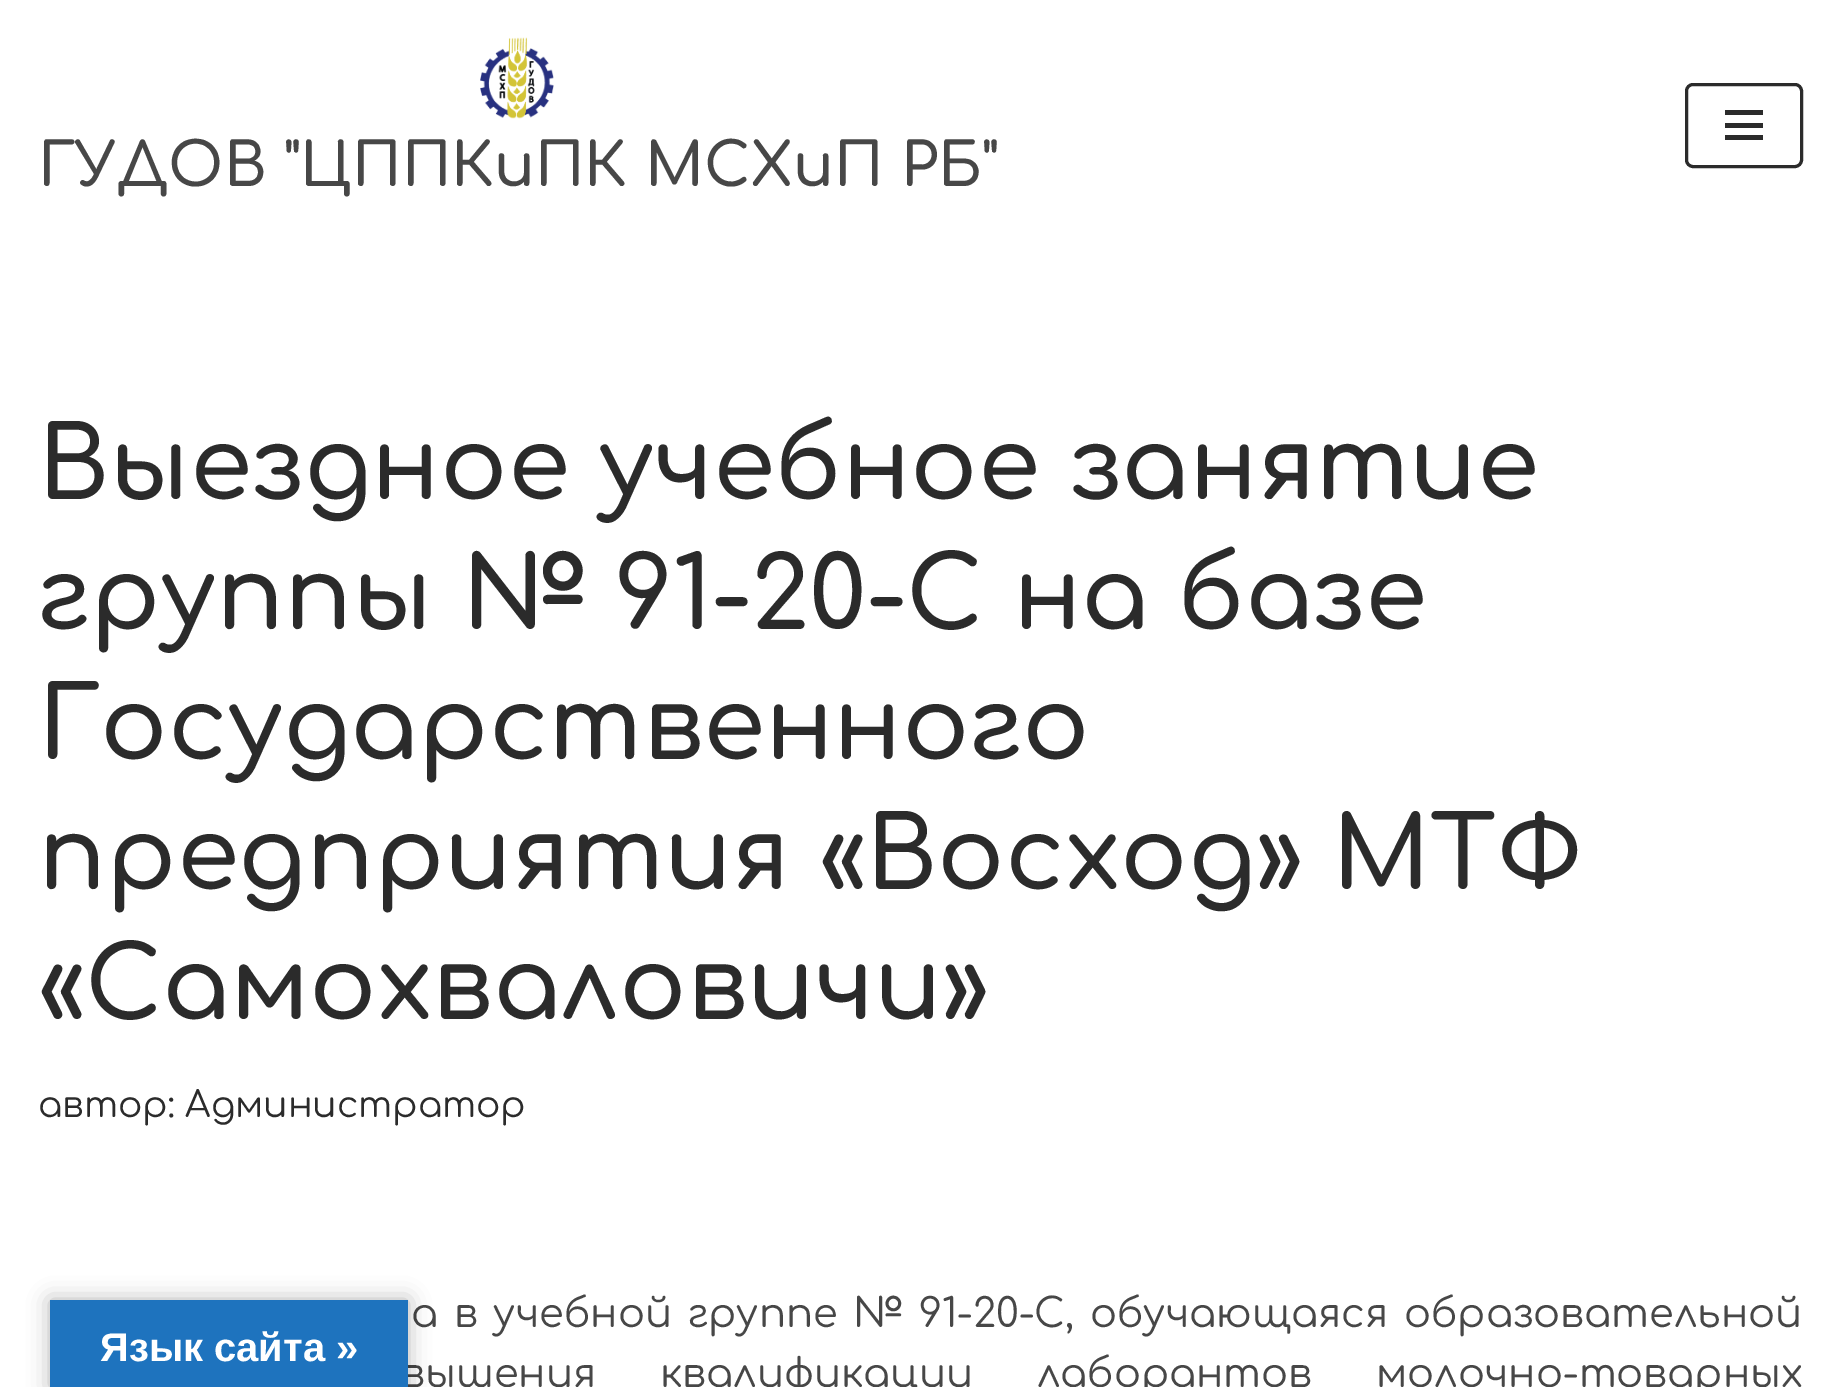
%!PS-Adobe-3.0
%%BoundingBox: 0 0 1840 1387
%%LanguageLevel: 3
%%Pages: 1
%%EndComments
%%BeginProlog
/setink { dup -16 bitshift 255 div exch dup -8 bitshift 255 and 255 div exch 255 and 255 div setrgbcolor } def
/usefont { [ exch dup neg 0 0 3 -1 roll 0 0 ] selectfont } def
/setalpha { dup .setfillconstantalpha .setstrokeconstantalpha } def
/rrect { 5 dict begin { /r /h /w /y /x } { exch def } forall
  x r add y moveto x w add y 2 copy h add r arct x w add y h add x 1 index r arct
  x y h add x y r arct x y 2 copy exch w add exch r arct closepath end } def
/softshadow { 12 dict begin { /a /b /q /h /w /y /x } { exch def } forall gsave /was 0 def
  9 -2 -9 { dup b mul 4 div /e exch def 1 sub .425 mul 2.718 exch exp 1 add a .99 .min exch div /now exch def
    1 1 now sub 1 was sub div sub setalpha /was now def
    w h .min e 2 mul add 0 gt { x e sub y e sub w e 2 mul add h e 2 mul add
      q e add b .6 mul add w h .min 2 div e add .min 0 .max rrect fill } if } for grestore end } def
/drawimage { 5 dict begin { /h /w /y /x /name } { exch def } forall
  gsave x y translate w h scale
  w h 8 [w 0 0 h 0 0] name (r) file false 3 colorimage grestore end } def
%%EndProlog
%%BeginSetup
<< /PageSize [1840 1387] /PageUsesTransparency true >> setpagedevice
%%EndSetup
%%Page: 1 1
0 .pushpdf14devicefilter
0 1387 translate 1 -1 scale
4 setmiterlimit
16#FFFFFF setink
0 0 1840 1387 rectfill
(img1.raw) 480 37 74 82 drawimage
/Comfortaa-SemiBold 60 usefont
16#474747 setink
38 186 moveto (ГУДОВ "ЦППКиПК МСХиП РБ") show
16#2B2B2B setink
3 setlinewidth
1686.5 84.5 115 82 6.5 rrect stroke
[
    [1725 110 38 5 16#2B2B2B]
    [1725 123 38 5 16#2B2B2B]
    [1725 135 38 5 16#2B2B2B]
] { aload pop setink rectfill } forall
/Comfortaa-SemiBold 100 usefont
[
    [(Выездное учебное занятие) 38 499]
    [(группы № 91-20-С на базе) 38 629]
    [(Государственного) 38 759]
    [(предприятия «Восход» МТФ) 38 889]
    [(«Самохваловичи») 38 1019]
] { aload pop moveto show } forall
/Comfortaa-Regular 36 usefont
38 1117 moveto (автор: Администратор) show
/Comfortaa-Regular 40 usefont
16#474747 setink
411 1327 moveto 4 0 32 (а в учебной группе № 91-20-С, обучающаяся образовательной) widthshow
401 1387 moveto 52 0 32 (вышения квалификации лаборантов молочно-товарных) widthshow
16#000000 setink
50 1300 358 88 0 11 0.3 softshadow
16#1E73BE setink
50 1300 358 87 rectfill
/LiberationSans-Bold 40 usefont
16#FFFFFF setink
100 1361 moveto (Язык сайта ») show
.poppdf14devicefilter showpage
%%EOF
